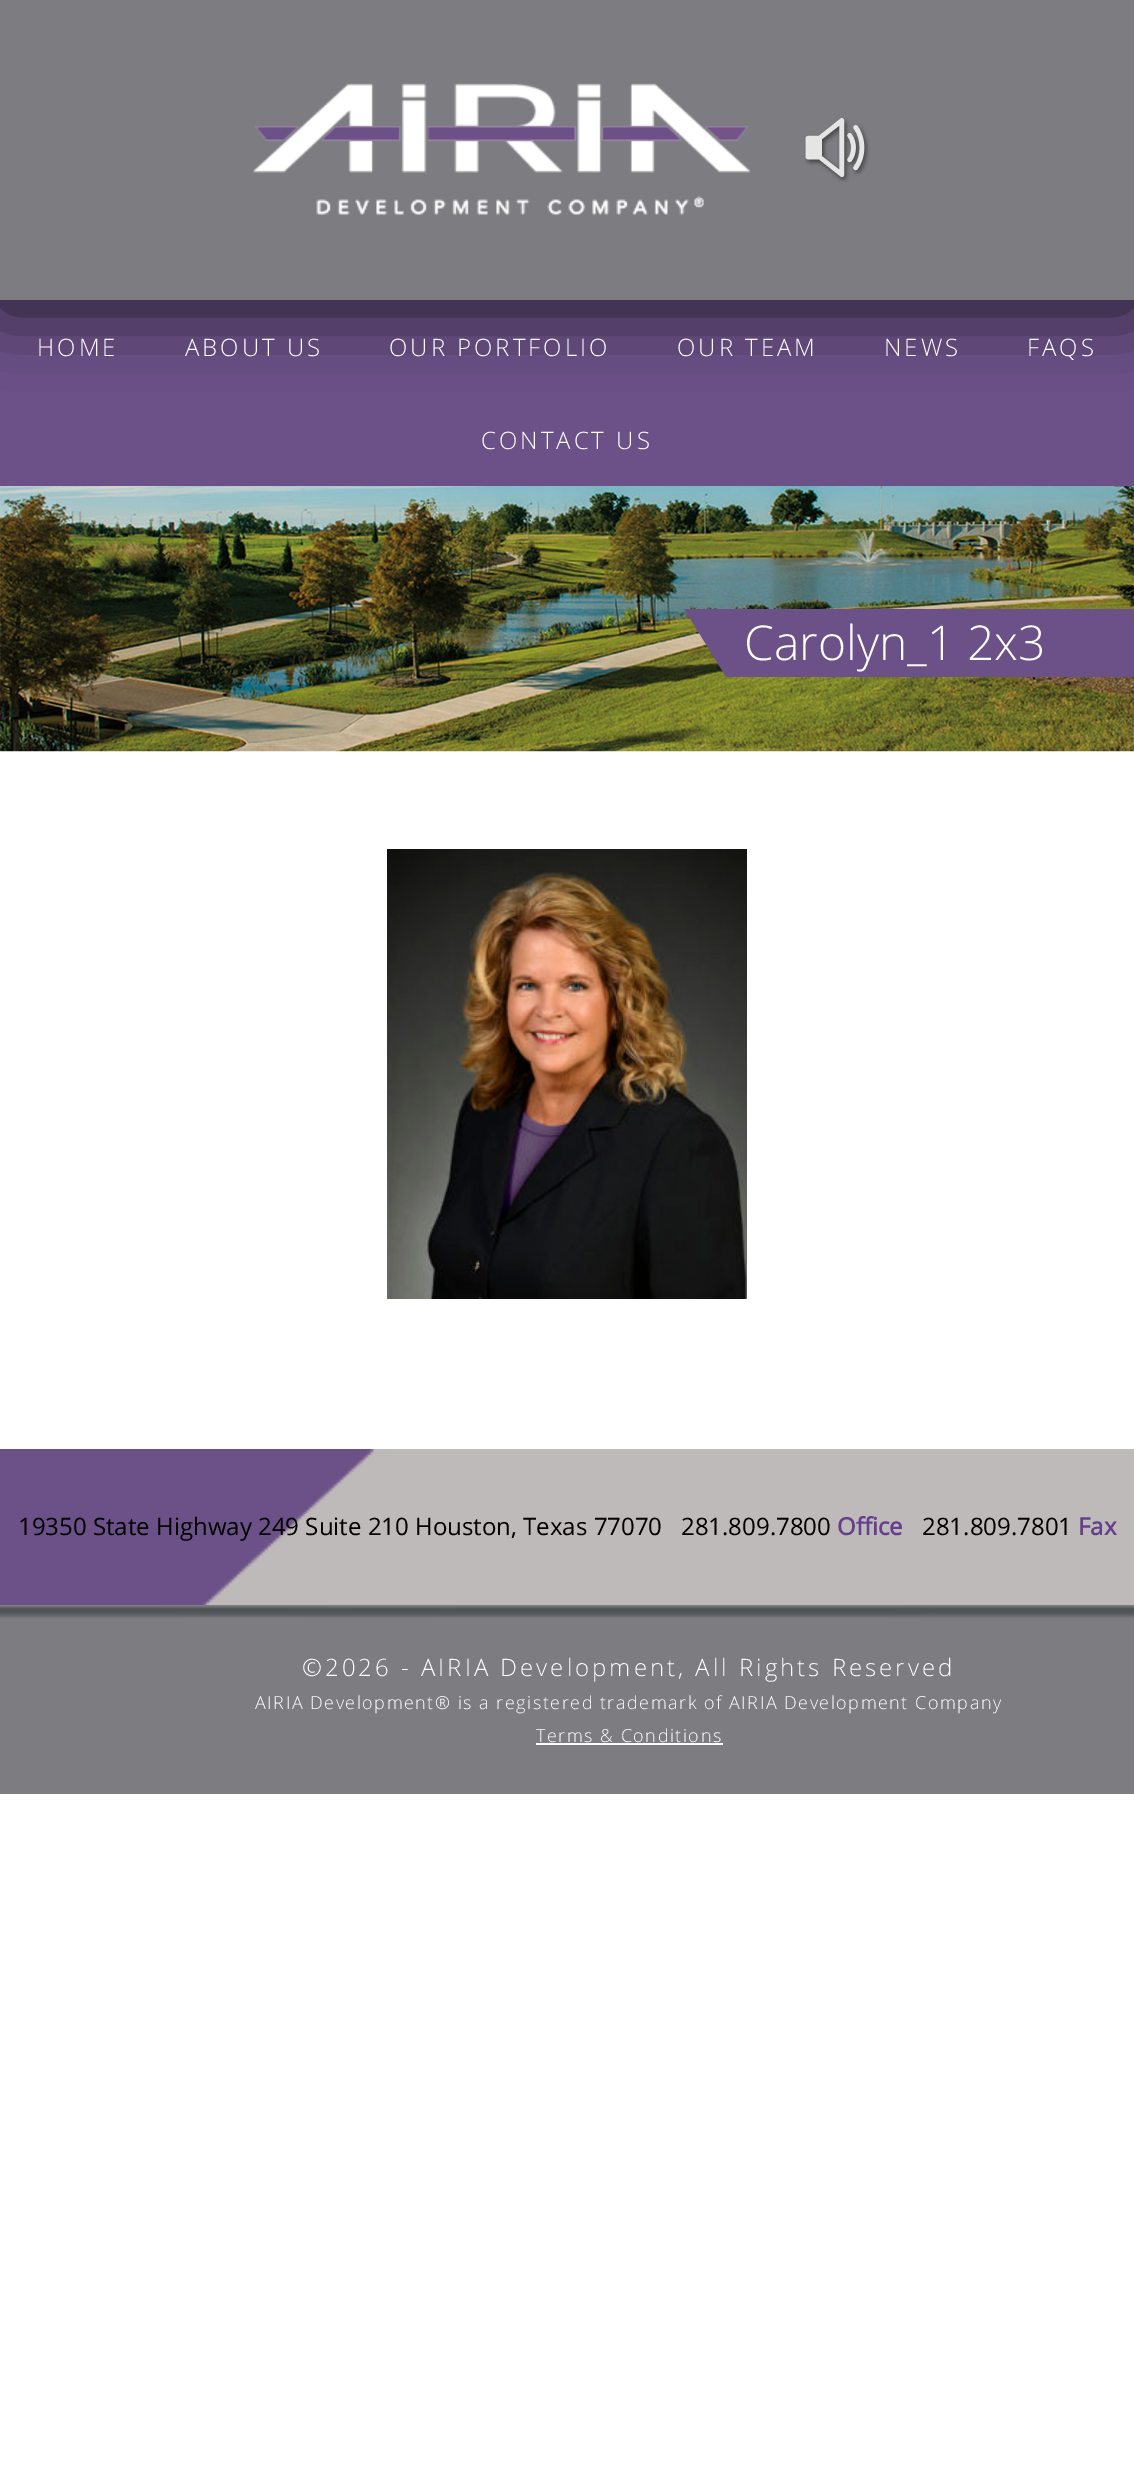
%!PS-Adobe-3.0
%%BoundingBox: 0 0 1134 2467
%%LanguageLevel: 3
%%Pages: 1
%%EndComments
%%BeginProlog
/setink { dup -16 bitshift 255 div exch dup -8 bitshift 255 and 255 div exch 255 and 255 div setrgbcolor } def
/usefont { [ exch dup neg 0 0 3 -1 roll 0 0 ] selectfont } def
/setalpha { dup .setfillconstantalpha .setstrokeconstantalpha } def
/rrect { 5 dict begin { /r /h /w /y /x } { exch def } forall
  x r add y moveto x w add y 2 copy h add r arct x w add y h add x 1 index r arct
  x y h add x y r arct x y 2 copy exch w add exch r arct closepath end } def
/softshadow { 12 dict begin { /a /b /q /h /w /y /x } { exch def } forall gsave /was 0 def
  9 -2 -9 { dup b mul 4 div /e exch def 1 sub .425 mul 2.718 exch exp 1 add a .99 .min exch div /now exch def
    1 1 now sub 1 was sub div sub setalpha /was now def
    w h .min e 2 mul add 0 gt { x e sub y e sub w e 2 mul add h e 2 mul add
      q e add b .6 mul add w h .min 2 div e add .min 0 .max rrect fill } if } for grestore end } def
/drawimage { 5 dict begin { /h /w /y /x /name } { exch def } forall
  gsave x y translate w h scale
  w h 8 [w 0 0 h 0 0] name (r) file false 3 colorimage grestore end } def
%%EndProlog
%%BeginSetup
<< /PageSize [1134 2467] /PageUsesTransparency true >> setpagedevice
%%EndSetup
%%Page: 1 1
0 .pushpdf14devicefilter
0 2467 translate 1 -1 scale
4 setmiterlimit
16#FFFFFF setink
0 0 1134 2467 rectfill
16#6C5188 setink
0 300 1134 186 rectfill
16#000000 setink
0 8 1134 300 0 37.5 0.75 softshadow
16#7C7C81 setink
0 0 1134 300 rectfill
(img1.raw) 253 83 498 132 drawimage
(img2.raw) 804 118 66 64 drawimage
/OpenSans-Light 24 usefont
16#FFFFFF setink
37 356 moveto 3 0 (HOME) ashow
185 356 moveto 3 0 (ABOUT US) ashow
389 356 moveto 3 0 (OUR PORTFOLIO) ashow
677 356 moveto 3 0 (OUR TEAM) ashow
884 356 moveto 3 0 (NEWS) ashow
1027 356 moveto 3 0 (FAQS) ashow
481 449 moveto 3 0 (CONTACT US) ashow
(img3.raw) 0 486 1134 266 drawimage
(img4.raw) 684 609 450 68 drawimage
/OpenSans-Light 48 usefont
744 660 moveto (Carolyn_1 2x3) show
(img5.raw) 387 849 360 450 drawimage
16#BEBAB9 setink
200 1449 934 156 rectfill
(img6.raw) 0 1449 374 156 drawimage
/OpenSans-Regular 24 usefont
16#000000 setink
18 1535 moveto (19350 State Highway 249 Suite 210 Houston, Texas 77070   281.809.7800) show
/OpenSans-Bold 24 usefont
16#653F8D setink
837 1535 moveto (Office) show
/OpenSans-Regular 24 usefont
16#000000 setink
922 1535 moveto (281.809.7801) show
/OpenSans-Bold 24 usefont
16#653F8D setink
1078 1535 moveto (Fax) show
16#7C7C81 setink
0 1605 1134 189 rectfill
(img7.raw) 0 1606 1134 12 drawimage
/OpenSans-Light 24 usefont
16#FFFFFF setink
302 1676 moveto 3 0 (©2026 - AIRIA Development, All Rights Reserved) ashow
/OpenSans-Light 18 usefont
255 1709 moveto 1.5 0 (AIRIA Development® is a registered trademark of AIRIA Development Company) ashow
536 1742 moveto 1.5 0 (Terms & Conditions) ashow
536 1743 187 2 rectfill
.poppdf14devicefilter showpage
%%EOF
